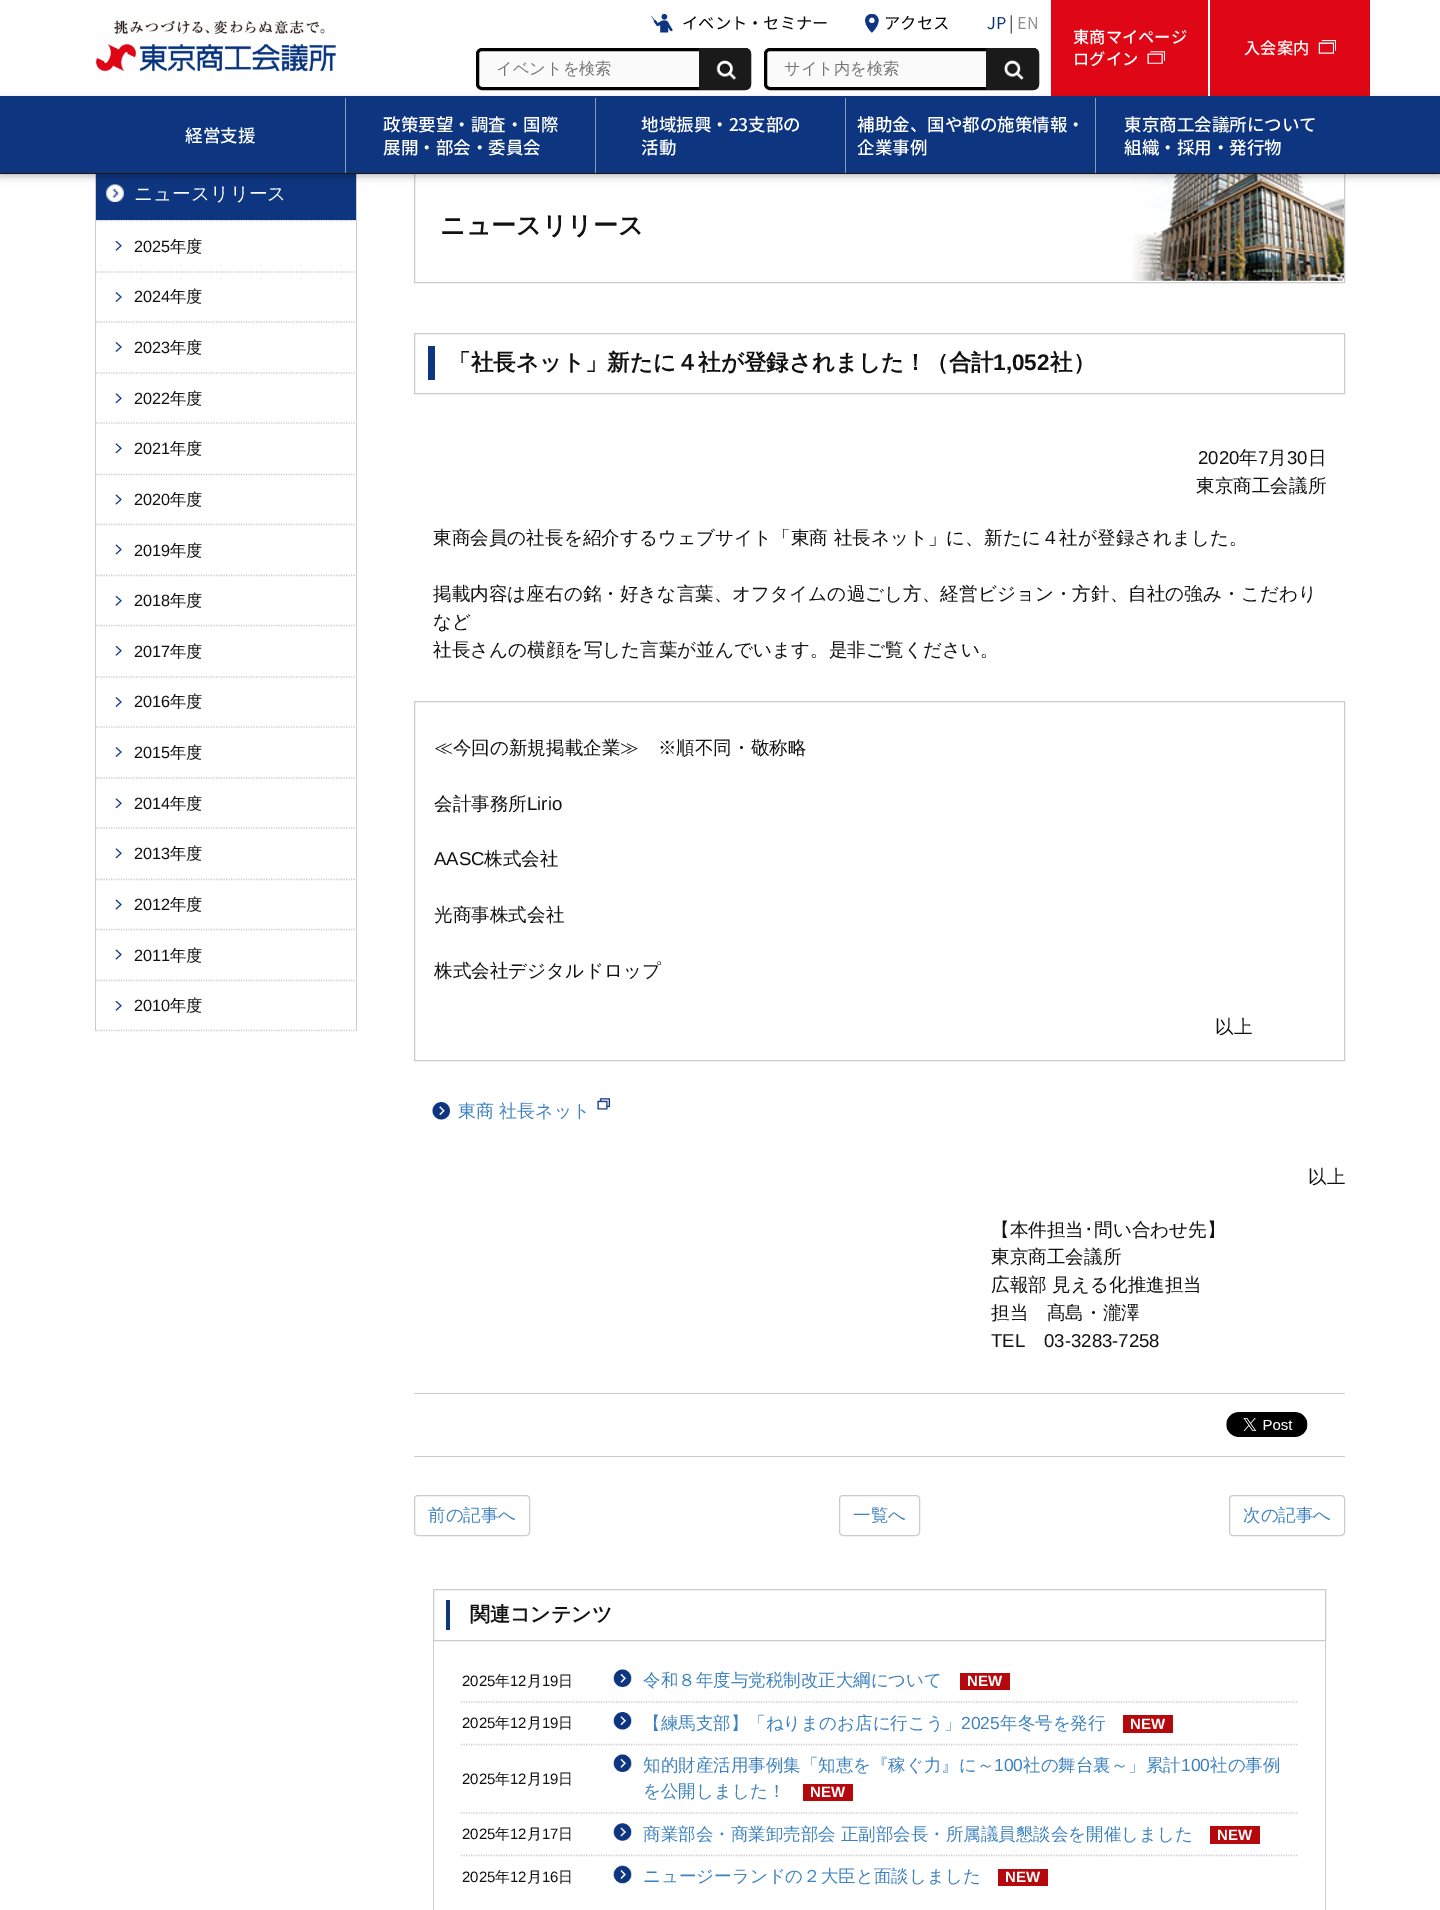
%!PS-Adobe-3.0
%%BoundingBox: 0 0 1440 1910
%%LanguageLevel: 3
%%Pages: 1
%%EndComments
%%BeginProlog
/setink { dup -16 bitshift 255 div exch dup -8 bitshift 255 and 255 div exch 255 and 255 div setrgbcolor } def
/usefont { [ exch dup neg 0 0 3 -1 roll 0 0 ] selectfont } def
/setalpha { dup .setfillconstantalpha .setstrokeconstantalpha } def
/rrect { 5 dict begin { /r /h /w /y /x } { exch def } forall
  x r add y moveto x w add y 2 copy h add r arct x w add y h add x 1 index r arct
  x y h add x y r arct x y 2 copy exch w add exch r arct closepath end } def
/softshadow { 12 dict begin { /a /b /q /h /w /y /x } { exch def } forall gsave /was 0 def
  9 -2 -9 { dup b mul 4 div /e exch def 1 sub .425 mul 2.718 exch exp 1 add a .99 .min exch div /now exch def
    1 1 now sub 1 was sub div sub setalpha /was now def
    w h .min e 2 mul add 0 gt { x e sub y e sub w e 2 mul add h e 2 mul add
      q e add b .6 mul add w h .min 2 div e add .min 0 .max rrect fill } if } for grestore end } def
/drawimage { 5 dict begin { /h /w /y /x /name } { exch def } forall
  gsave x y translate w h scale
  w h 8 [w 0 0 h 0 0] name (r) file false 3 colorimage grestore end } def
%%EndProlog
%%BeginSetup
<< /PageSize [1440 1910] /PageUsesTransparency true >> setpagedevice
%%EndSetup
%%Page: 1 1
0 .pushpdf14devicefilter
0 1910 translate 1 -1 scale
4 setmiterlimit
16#FFFFFF setink
0 0 1440 1910 rectfill
(img1.raw) 95 20 242 52 drawimage
(img2.raw) 651 14 22 19 drawimage
/NotoSansJP-Regular 16.25 usefont
16#000000 setink
682 29 moveto (イベント・セミナー) show
(img3.raw) 865 14 14 19 drawimage
884 29 moveto (アクセス) show
16#0E357F setink
987 29 moveto (JP) show
16#1C1C1C setink
1009 29 moveto (|) show
16#8E8E8E setink
1017 29 moveto (EN) show
16#FAFAFA setink
477.5 49.5 272 39 4.5 rrect gsave fill grestore
16#000000 setink
3 setlinewidth
stroke
/WenQuanYiZenHei-Medium 16.25 usefont
16#757575 setink
496 74 moveto (イベントを検索) show
16#1A1A1A setink
699 48 moveto 745 48 lineto 748.5 48 751 50.5 751 54 curveto 751 84 lineto 751 87.5 748.5 90 745 90 curveto 699 90 lineto closepath fill
(img4.raw) 716 60 21 20 drawimage
16#FAFAFA setink
765.5 49.5 272 39 4.5 rrect gsave fill grestore
16#000000 setink
stroke
16#757575 setink
784 74 moveto (サイト内を検索) show
16#1A1A1A setink
986 48 moveto 1033 48 lineto 1036.5 48 1039 50.5 1039 54 curveto 1039 84 lineto 1039 87.5 1036.5 90 1033 90 curveto 986 90 lineto closepath fill
(img5.raw) 1004 60 20 20 drawimage
16#DF0615 setink
1051 0 157 96 rectfill
/NotoSansJP-Medium 16.25 usefont
16#FFFFFF setink
1073 43 moveto (東商マイページ) show
1073 65 moveto (ログイン) show
(img6.raw) 1147 51 18 13 drawimage
16#DF0615 setink
1210 0 160 96 rectfill
16#FFFFFF setink
1244 54 moveto (入会案内) show
(img7.raw) 1318 40 18 14 drawimage
16#CCCCCC setink
356 168 1 863 rectfill
95 168 1 863 rectfill
1 setlinewidth
414.5 168.5 930 114 rectstroke
16#0E357F setink
0 96 1440 77 rectfill
16#CCCCCC setink
1.2 setlinewidth
[1.25 1.25] 0 setdash
96 220.5 moveto 356 220.5 lineto stroke
16#0E357F setink
96 174 260 46 rectfill
(img8.raw) 106 184 18 18 drawimage
(img14.raw) 1132 174 212 107 drawimage
gsave
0 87 moveto 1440 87 lineto 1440 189 lineto 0 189 lineto closepath 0 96 moveto 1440 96 lineto 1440 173 lineto 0 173 lineto closepath eoclip newpath
16#000000 setink
0 100 1440 76 0 4 0.3 softshadow
grestore
/NotoSansJP-Medium 17.5 usefont
16#FFFFFF setink
185 142 moveto (経営支援) show
16#8E9BB4 setink
345 98 1 75 rectfill
16#FFFFFF setink
383 131 moveto (政策要望・調査・国際) show
383 154 moveto (展開・部会・委員会) show
16#8E9BB4 setink
595 98 1 75 rectfill
16#FFFFFF setink
641 131 moveto (地域振興・23支部の) show
641 154 moveto (活動) show
16#8E9BB4 setink
845 98 1 75 rectfill
16#FFFFFF setink
857 131 moveto (補助金、国や都の施策情報・) show
857 154 moveto (企業事例) show
16#8E9BB4 setink
1095 98 1 75 rectfill
16#FFFFFF setink
1124 131 moveto (東京商工会議所について) show
1124 154 moveto (組織・採用・発行物) show
16#24140E setink
0 173 1440 1 rectfill
/WenQuanYiZenHei-Medium 18.75 usefont
16#FFFFFF setink
134 200 moveto (ニュースリリース) show
16#CCCCCC setink
96 1030.5 moveto 356 1030.5 lineto stroke
(img9.raw) 115 240 7 11 drawimage
/LiberationSans-Regular 16.25 usefont
16#111111 setink
134 252 moveto (2025) show
/WenQuanYiZenHei-Medium 16.25 usefont
170 252 moveto (年度) show
16#CCCCCC setink
96 272 moveto 356 272 lineto stroke
(img10.raw) 115 292 7 10 drawimage
/LiberationSans-Regular 16.25 usefont
16#111111 setink
134 302 moveto (2024) show
/WenQuanYiZenHei-Medium 16.25 usefont
170 302 moveto (年度) show
16#CCCCCC setink
96 322 moveto 356 322 lineto stroke
(img10.raw) 115 342 7 10 drawimage
/LiberationSans-Regular 16.25 usefont
16#111111 setink
134 353 moveto (2023) show
/WenQuanYiZenHei-Medium 16.25 usefont
170 353 moveto (年度) show
16#CCCCCC setink
96 373 moveto 356 373 lineto stroke
(img11.raw) 115 393 7 11 drawimage
/LiberationSans-Regular 16.25 usefont
16#111111 setink
134 404 moveto (2022) show
/WenQuanYiZenHei-Medium 16.25 usefont
170 404 moveto (年度) show
16#CCCCCC setink
96 423 moveto 356 423 lineto stroke
(img11.raw) 115 443 7 11 drawimage
/LiberationSans-Regular 16.25 usefont
16#111111 setink
134 454 moveto (2021) show
/WenQuanYiZenHei-Medium 16.25 usefont
170 454 moveto (年度) show
16#CCCCCC setink
96 474.5 moveto 356 474.5 lineto stroke
(img12.raw) 115 494 7 11 drawimage
/LiberationSans-Regular 16.25 usefont
16#111111 setink
134 505 moveto (2020) show
/WenQuanYiZenHei-Medium 16.25 usefont
170 505 moveto (年度) show
16#CCCCCC setink
96 524.5 moveto 356 524.5 lineto stroke
(img13.raw) 115 544 7 11 drawimage
/LiberationSans-Regular 16.25 usefont
16#111111 setink
134 556 moveto (2019) show
/WenQuanYiZenHei-Medium 16.25 usefont
170 556 moveto (年度) show
16#CCCCCC setink
96 575.5 moveto 356 575.5 lineto stroke
(img9.raw) 115 595 7 11 drawimage
/LiberationSans-Regular 16.25 usefont
16#111111 setink
134 606 moveto (2018) show
/WenQuanYiZenHei-Medium 16.25 usefont
170 606 moveto (年度) show
16#CCCCCC setink
96 625.5 moveto 356 625.5 lineto stroke
(img9.raw) 115 645 7 11 drawimage
/LiberationSans-Regular 16.25 usefont
16#111111 setink
134 657 moveto (2017) show
/WenQuanYiZenHei-Medium 16.25 usefont
170 657 moveto (年度) show
16#CCCCCC setink
96 677 moveto 356 677 lineto stroke
(img10.raw) 115 697 7 10 drawimage
/LiberationSans-Regular 16.25 usefont
16#111111 setink
134 707 moveto (2016) show
/WenQuanYiZenHei-Medium 16.25 usefont
170 707 moveto (年度) show
16#CCCCCC setink
96 727 moveto 356 727 lineto stroke
(img10.raw) 115 747 7 10 drawimage
/LiberationSans-Regular 16.25 usefont
16#111111 setink
134 758 moveto (2015) show
/WenQuanYiZenHei-Medium 16.25 usefont
170 758 moveto (年度) show
16#CCCCCC setink
96 778 moveto 356 778 lineto stroke
(img11.raw) 115 798 7 11 drawimage
/LiberationSans-Regular 16.25 usefont
16#111111 setink
134 809 moveto (2014) show
/WenQuanYiZenHei-Medium 16.25 usefont
170 809 moveto (年度) show
16#CCCCCC setink
96 828 moveto 356 828 lineto stroke
(img11.raw) 115 848 7 11 drawimage
/LiberationSans-Regular 16.25 usefont
16#111111 setink
134 859 moveto (2013) show
/WenQuanYiZenHei-Medium 16.25 usefont
170 859 moveto (年度) show
16#CCCCCC setink
96 879.5 moveto 356 879.5 lineto stroke
(img13.raw) 115 899 7 11 drawimage
/LiberationSans-Regular 16.25 usefont
16#111111 setink
134 910 moveto (2012) show
/WenQuanYiZenHei-Medium 16.25 usefont
170 910 moveto (年度) show
16#CCCCCC setink
96 929.5 moveto 356 929.5 lineto stroke
(img13.raw) 115 949 7 11 drawimage
/LiberationSans-Regular 16.25 usefont
16#111111 setink
134 961 moveto (2011) show
/WenQuanYiZenHei-Medium 16.25 usefont
170 961 moveto (年度) show
16#CCCCCC setink
96 980.5 moveto 356 980.5 lineto stroke
(img9.raw) 115 1000 7 11 drawimage
/LiberationSans-Regular 16.25 usefont
16#111111 setink
134 1011 moveto (2010) show
/WenQuanYiZenHei-Medium 16.25 usefont
170 1011 moveto (年度) show
/WenQuanYiZenHei-Bold 25 usefont
440 234 moveto (ニュースリリース) show
16#CCCCCC setink
1 setlinewidth
[] 0 setdash
414.5 333.5 930 60 rectstroke
16#0E357F setink
428 346 7 34 rectfill
/WenQuanYiZenHei-Bold 22.5 usefont
16#111111 setink
448 370 moveto (「社長ネット」新たに４社が登録されました！（合計) show
/LiberationSans-Bold 22.5 usefont
993 370 moveto (1,052) show
/WenQuanYiZenHei-Bold 22.5 usefont
1050 370 moveto (社）) show
/LiberationSans-Regular 18.6 usefont
1198 464 moveto (2020) show
/WenQuanYiZenHei-Medium 18.6 usefont
1239 464 moveto (年) show
/LiberationSans-Regular 18.6 usefont
1258 464 moveto (7) show
/WenQuanYiZenHei-Medium 18.6 usefont
1268 464 moveto (月) show
/LiberationSans-Regular 18.6 usefont
1287 464 moveto (30) show
/WenQuanYiZenHei-Medium 18.6 usefont
[
    [(日) 1308 464]
    [(東京商工会議所) 1196 492]
    [(東商会員の社長を紹介するウェブサイト「東商 社長ネット」に、新たに４社が登録されました。) 433 544]
    [(掲載内容は座右の銘・好きな言葉、オフタイムの過ごし方、経営ビジョン・方針、自社の強み・こだわり) 433 600]
    [(など) 433 628]
    [(社長さんの横顔を写した言葉が並んでいます。是非ご覧ください。) 433 656]
] { aload pop moveto show } forall
16#CCCCCC setink
414.5 701.5 930 359 rectstroke
16#111111 setink
434 754 moveto (≪今回の新規掲載企業≫　※順不同・敬称略) show
434 810 moveto (会計事務所) show
/LiberationSans-Regular 18.6 usefont
527 810 moveto (Lirio) show
434 865 moveto (AASC) show
/WenQuanYiZenHei-Medium 18.6 usefont
[
    [(株式会社) 484 865]
    [(光商事株式会社) 434 921]
    [(株式会社デジタルドロップ) 434 977]
    [(以上) 1215 1033]
] { aload pop moveto show } forall
(img15.raw) 432 1102 18 18 drawimage
/WenQuanYiZenHei-Medium 18 usefont
16#3E83C0 setink
458 1117 moveto (東商 社長ネット) show
(img16.raw) 596 1098 14 12 drawimage
/WenQuanYiZenHei-Medium 18.6 usefont
16#111111 setink
1308 1183 moveto (以上) show
991 1236 moveto (【本件担当) show
/IPAGothic-Regular 18.6 usefont
1084 1236 moveto (･) show
/WenQuanYiZenHei-Medium 18.6 usefont
[
    [(問い合わせ先】) 1094 1236]
    [(東京商工会議所) 991 1263]
    [(広報部 見える化推進担当) 991 1291]
    [(担当　髙島・瀧澤) 991 1319]
] { aload pop moveto show } forall
/LiberationSans-Regular 18.6 usefont
991 1347 moveto (TEL) show
1044 1347 moveto (03-3283-7258) show
16#CCCCCC setink
414 1393 931 1 rectfill
414 1456 931 1 rectfill
(img17.raw) 1226 1412 82 25 drawimage
414.5 1495.5 115 40 3.5 rrect stroke
/WenQuanYiZenHei-Medium 17.5 usefont
16#3E83C0 setink
428 1521 moveto (前の記事へ) show
16#CCCCCC setink
839.5 1495.5 80 40 3.5 rrect stroke
16#3E83C0 setink
853 1521 moveto (一覧へ) show
16#CCCCCC setink
1229.5 1495.5 115 40 3.5 rrect stroke
16#3E83C0 setink
1243 1521 moveto (次の記事へ) show
16#CCCCCC setink
433.5 1589.5 892 51 rectstroke
16#0E357F setink
446 1600 4 30 rectfill
/WenQuanYiZenHei-Bold 20 usefont
16#111111 setink
470 1621 moveto (関連コンテンツ) show
16#CCCCCC setink
1325 1641 1 269 rectfill
433 1641 1 269 rectfill
/LiberationSans-Regular 15 usefont
16#111111 setink
462 1686 moveto (2025) show
/WenQuanYiZenHei-Medium 15 usefont
495 1686 moveto (年) show
/LiberationSans-Regular 15 usefont
510 1686 moveto (12) show
/WenQuanYiZenHei-Medium 15 usefont
527 1686 moveto (月) show
/LiberationSans-Regular 15 usefont
542 1686 moveto (19) show
/WenQuanYiZenHei-Medium 15 usefont
558 1686 moveto (日) show
(img18.raw) 613 1669 19 18 drawimage
/WenQuanYiZenHei-Medium 17.5 usefont
16#3E83C0 setink
643 1686 moveto (令和８年度与党税制改正大綱について) show
16#B5090E setink
960 1673 50 17 rectfill
/LiberationSans-Bold 15 usefont
16#FFFFFF setink
967 1686 moveto (NEW) show
16#CCCCCC setink
1.2 setlinewidth
[1.25 1.25] 0 setdash
461 1702 moveto 1297.5 1702 lineto stroke
/LiberationSans-Regular 15 usefont
16#111111 setink
462 1728 moveto (2025) show
/WenQuanYiZenHei-Medium 15 usefont
495 1728 moveto (年) show
/LiberationSans-Regular 15 usefont
510 1728 moveto (12) show
/WenQuanYiZenHei-Medium 15 usefont
527 1728 moveto (月) show
/LiberationSans-Regular 15 usefont
542 1728 moveto (19) show
/WenQuanYiZenHei-Medium 15 usefont
558 1728 moveto (日) show
(img19.raw) 613 1712 19 18 drawimage
/WenQuanYiZenHei-Medium 17.5 usefont
16#3E83C0 setink
643 1729 moveto (【練馬支部】「ねりまのお店に行こう」) show
/LiberationSans-Regular 17.5 usefont
961 1729 moveto (2025) show
/WenQuanYiZenHei-Medium 17.5 usefont
1000 1729 moveto (年冬号を発行) show
16#B5090E setink
1123 1715 50 18 rectfill
/LiberationSans-Bold 15 usefont
16#FFFFFF setink
1130 1729 moveto (NEW) show
16#CCCCCC setink
461 1744.5 moveto 1297.5 1744.5 lineto stroke
/LiberationSans-Regular 15 usefont
16#111111 setink
462 1784 moveto (2025) show
/WenQuanYiZenHei-Medium 15 usefont
495 1784 moveto (年) show
/LiberationSans-Regular 15 usefont
510 1784 moveto (12) show
/WenQuanYiZenHei-Medium 15 usefont
527 1784 moveto (月) show
/LiberationSans-Regular 15 usefont
542 1784 moveto (19) show
/WenQuanYiZenHei-Medium 15 usefont
558 1784 moveto (日) show
(img18.raw) 613 1754 19 18 drawimage
/WenQuanYiZenHei-Medium 17.5 usefont
16#3E83C0 setink
643 1771 moveto (知的財産活用事例集「知恵を『稼ぐ力』に～) show
/LiberationSans-Regular 17.5 usefont
994 1771 moveto (100) show
/WenQuanYiZenHei-Medium 17.5 usefont
1023 1771 moveto (社の舞台裏～」累計) show
/LiberationSans-Regular 17.5 usefont
1181 1771 moveto (100) show
/WenQuanYiZenHei-Medium 17.5 usefont
1210 1771 moveto (社の事例) show
643 1797 moveto (を公開しました！) show
16#B5090E setink
803 1784 50 17 rectfill
/LiberationSans-Bold 15 usefont
16#FFFFFF setink
810 1797 moveto (NEW) show
16#CCCCCC setink
461 1813 moveto 1297.5 1813 lineto stroke
/LiberationSans-Regular 15 usefont
16#111111 setink
462 1839 moveto (2025) show
/WenQuanYiZenHei-Medium 15 usefont
495 1839 moveto (年) show
/LiberationSans-Regular 15 usefont
510 1839 moveto (12) show
/WenQuanYiZenHei-Medium 15 usefont
527 1839 moveto (月) show
/LiberationSans-Regular 15 usefont
542 1839 moveto (17) show
/WenQuanYiZenHei-Medium 15 usefont
558 1839 moveto (日) show
(img20.raw) 613 1823 19 18 drawimage
/WenQuanYiZenHei-Medium 17.5 usefont
16#3E83C0 setink
643 1840 moveto (商業部会・商業卸売部会 正副部会長・所属議員懇談会を開催しました) show
16#B5090E setink
1210 1826 50 18 rectfill
/LiberationSans-Bold 15 usefont
16#FFFFFF setink
1217 1840 moveto (NEW) show
16#CCCCCC setink
461 1855.5 moveto 1297.5 1855.5 lineto stroke
/LiberationSans-Regular 15 usefont
16#111111 setink
462 1882 moveto (2025) show
/WenQuanYiZenHei-Medium 15 usefont
495 1882 moveto (年) show
/LiberationSans-Regular 15 usefont
510 1882 moveto (12) show
/WenQuanYiZenHei-Medium 15 usefont
527 1882 moveto (月) show
/LiberationSans-Regular 15 usefont
542 1882 moveto (16) show
/WenQuanYiZenHei-Medium 15 usefont
558 1882 moveto (日) show
(img21.raw) 613 1865 19 19 drawimage
/WenQuanYiZenHei-Medium 17.5 usefont
16#3E83C0 setink
643 1882 moveto (ニュージーランドの２大臣と面談しました) show
16#B5090E setink
998 1869 50 17 rectfill
/LiberationSans-Bold 15 usefont
16#FFFFFF setink
1005 1882 moveto (NEW) show
.poppdf14devicefilter showpage
%%EOF
